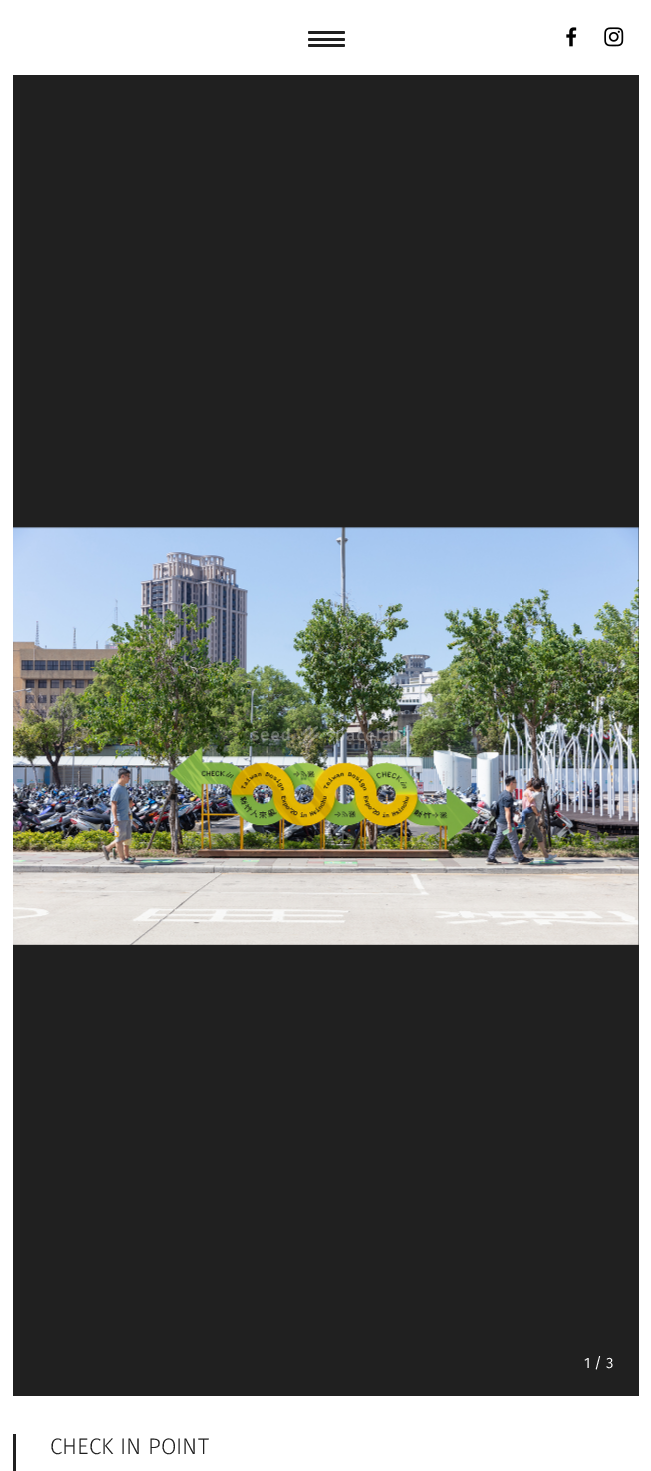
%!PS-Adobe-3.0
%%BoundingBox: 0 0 651 1471
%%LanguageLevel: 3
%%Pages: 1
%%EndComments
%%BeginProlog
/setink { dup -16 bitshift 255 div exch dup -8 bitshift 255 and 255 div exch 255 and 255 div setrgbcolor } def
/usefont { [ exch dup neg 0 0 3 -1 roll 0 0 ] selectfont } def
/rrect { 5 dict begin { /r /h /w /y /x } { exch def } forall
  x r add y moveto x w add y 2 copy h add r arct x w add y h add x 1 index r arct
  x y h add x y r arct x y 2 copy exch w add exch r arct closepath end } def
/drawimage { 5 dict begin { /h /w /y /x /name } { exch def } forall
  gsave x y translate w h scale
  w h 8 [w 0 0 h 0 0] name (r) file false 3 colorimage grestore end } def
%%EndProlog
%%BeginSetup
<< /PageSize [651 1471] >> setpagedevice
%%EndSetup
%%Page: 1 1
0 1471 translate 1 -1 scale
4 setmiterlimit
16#FFFFFF setink
0 0 651 1471 rectfill
16#202020 setink
308 31 37 3 1.5 rrect fill
308 38 37 3 1.5 rrect fill
308 44 37 3 1.5 rrect fill
(img1.raw) 566 27 11 20 drawimage
(img2.raw) 604 27 20 20 drawimage
13 75 626 1321 rectfill
(img3.raw) 13 527 626 418 drawimage
(img4.raw) 251 725 151 22 drawimage
/FiraSans-Regular 15 usefont
16#FFFFFF setink
584 1368 moveto (1 / 3) show
16#202020 setink
13 1434 3 37 rectfill
/FiraSans-Light 22.5 usefont
50 1454 moveto (CHECK IN POINT) show
showpage
%%EOF
